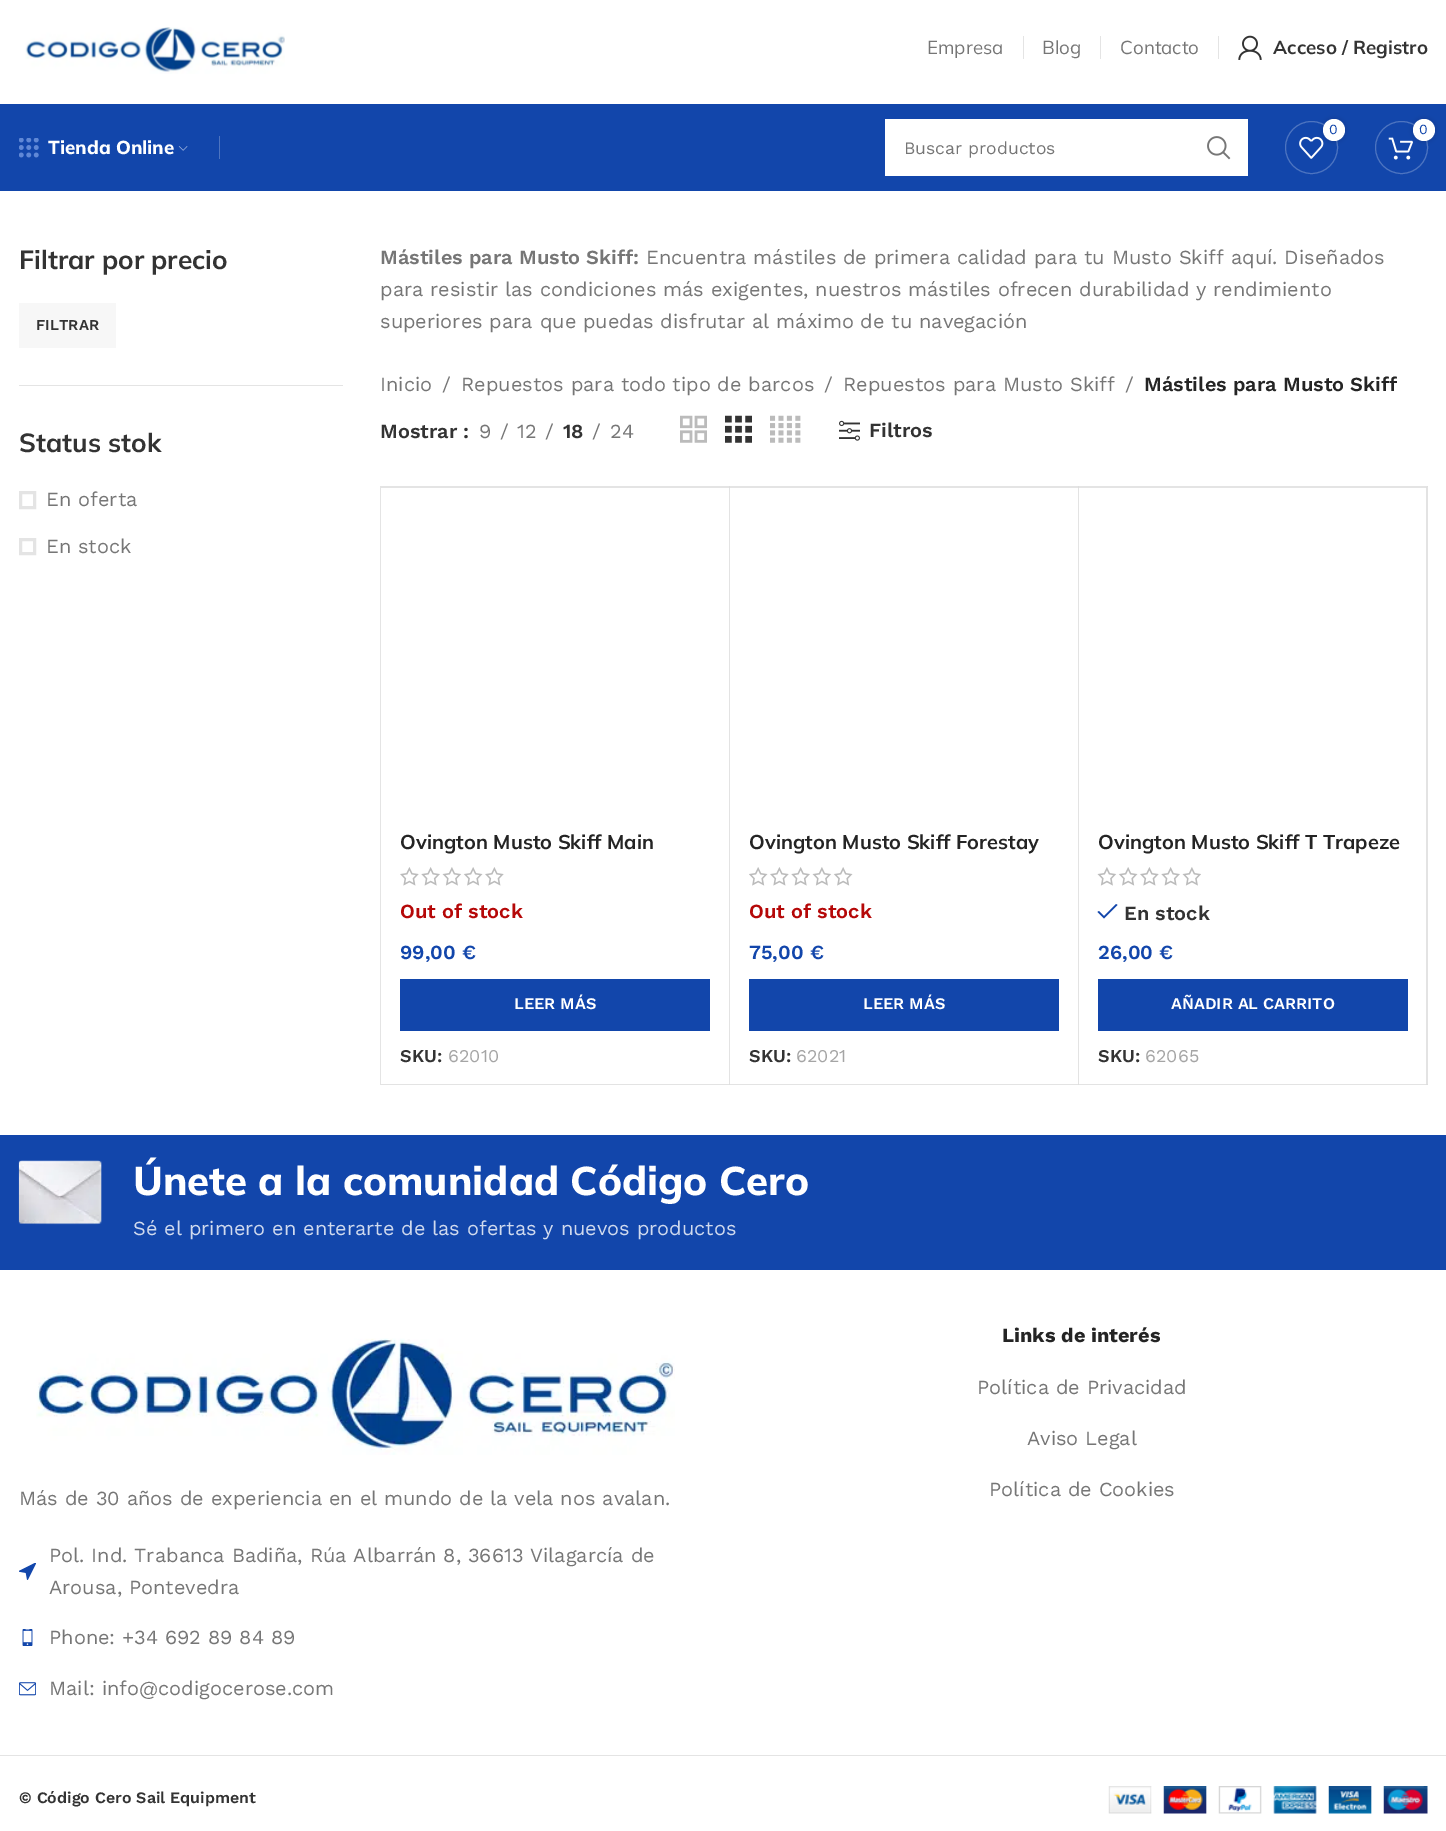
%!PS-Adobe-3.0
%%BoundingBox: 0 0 1446 1831
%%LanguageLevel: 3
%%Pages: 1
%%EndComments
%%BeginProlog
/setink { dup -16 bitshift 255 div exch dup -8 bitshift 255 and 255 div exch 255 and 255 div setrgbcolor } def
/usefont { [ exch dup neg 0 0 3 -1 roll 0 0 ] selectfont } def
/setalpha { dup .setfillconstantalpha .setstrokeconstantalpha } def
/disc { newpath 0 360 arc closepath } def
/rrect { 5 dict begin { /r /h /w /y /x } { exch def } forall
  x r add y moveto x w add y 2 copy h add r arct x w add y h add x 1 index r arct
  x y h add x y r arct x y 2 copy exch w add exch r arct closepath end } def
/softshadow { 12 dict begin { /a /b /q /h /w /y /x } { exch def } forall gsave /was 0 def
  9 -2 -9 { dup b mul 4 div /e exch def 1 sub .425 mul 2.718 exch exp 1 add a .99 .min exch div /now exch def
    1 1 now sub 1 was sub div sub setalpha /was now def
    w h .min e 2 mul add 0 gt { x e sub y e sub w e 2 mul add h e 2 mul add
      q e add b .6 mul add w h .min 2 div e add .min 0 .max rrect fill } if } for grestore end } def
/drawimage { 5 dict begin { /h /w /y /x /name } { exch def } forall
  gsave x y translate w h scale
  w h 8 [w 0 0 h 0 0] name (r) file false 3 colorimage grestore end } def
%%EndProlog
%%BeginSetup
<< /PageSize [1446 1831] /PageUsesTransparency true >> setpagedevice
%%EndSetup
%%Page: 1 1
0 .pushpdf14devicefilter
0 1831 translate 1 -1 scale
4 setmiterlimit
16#FFFFFF setink
0 0 1446 1831 rectfill
(img1.raw) 25 27 260 47 drawimage
/Mulish-Regular 18.75 usefont
16#767676 setink
927 54 moveto (Empresa) show
16#E4E4E4 setink
1023 36 1 23 rectfill
16#767676 setink
1042 54 moveto (Blog) show
16#E4E4E4 setink
1100 36 1 23 rectfill
16#767676 setink
1120 54 moveto (Contacto) show
16#E4E4E4 setink
1218 36 1 23 rectfill
(img2.raw) 1238 35 24 25 drawimage
/Mulish-Bold 18.75 usefont
16#333333 setink
1273 54 moveto (Acceso / Registro) show
16#1246AB setink
0 104 1446 87 rectfill
(img3.raw) 19 138 20 20 drawimage
/Mulish-ExtraBold 18.75 usefont
16#FFFFFF setink
48 154 moveto (Tienda Online) show
(img4.raw) 178 146 10 5 drawimage
16#4D74C0 setink
219 136 1 23 rectfill
1311.5 147.5 26 disc stroke
(img5.raw) 1299 136 25 23 drawimage
16#000000 setink
1323 119 22 22 11 2.5 0.17 softshadow
16#FFFFFF setink
1334 130 11 disc fill
/WorkSans-Regular 14 usefont
16#1246AB setink
1329 134 moveto (0) show
16#4D74C0 setink
1401.5 147.5 26 disc stroke
(img6.raw) 1388 137 25 23 drawimage
16#000000 setink
1413 119 22 22 11 2.5 0.17 softshadow
16#FFFFFF setink
1424 130 11 disc fill
16#1246AB setink
1419 134 moveto (0) show
16#FFFFFF setink
885 119 363 57 rectfill
/WorkSans-Regular 17.5 usefont
16#767676 setink
904 154 moveto (Buscar productos) show
(img7.raw) 1207 136 24 24 drawimage
16#E4E4E4 setink
19 385 324 1 rectfill
/Mulish-Bold 26.25 usefont
16#333333 setink
19 269 moveto (Filtrar por precio) show
16#F7F7F7 setink
19 303 97 45 rectfill
/WorkSans-SemiBold 15 usefont
16#333333 setink
36 330 moveto (FILTRAR) show
/Mulish-Bold 26.25 usefont
19 452 moveto (Status stok) show
16#E4E4E4 setink
3 setlinewidth
20.5 492.5 14 15 rectstroke
/WorkSans-Regular 20 usefont
16#767676 setink
46 506 moveto (En oferta) show
16#E4E4E4 setink
20.5 539.5 14 14 rectstroke
16#767676 setink
46 553 moveto (En stock) show
/WorkSans-SemiBold 20 usefont
380 264 moveto (Mástiles para Musto Skiff:) show
/WorkSans-Regular 20 usefont
[
    [(Encuentra mástiles de primera calidad para tu Musto Skiff aquí. Diseñados) 646 264]
    [(para resistir las condiciones más exigentes, nuestros mástiles ofrecen durabilidad y rendimiento) 380 296]
    [(superiores para que puedas disfrutar al máximo de tu navegación) 380 328]
    [(Inicio) 380 391]
    [(/) 442 391]
    [(Repuestos para todo tipo de barcos) 461 391]
    [(/) 824 391]
    [(Repuestos para Musto Skiff) 843 391]
    [(/) 1125 391]
] { aload pop moveto show } forall
/WorkSans-SemiBold 20 usefont
16#242424 setink
1144 391 moveto (Mástiles para Musto Skiff) show
16#333333 setink
380 438 moveto (Mostrar :) show
/WorkSans-Regular 20 usefont
16#767676 setink
[
    [(9) 479 438]
    [(/) 500 438]
    [(12) 517 438]
    [(/) 545 438]
] { aload pop moveto show } forall
/WorkSans-SemiBold 20 usefont
16#333333 setink
563 438 moveto (18) show
/WorkSans-Regular 20 usefont
16#767676 setink
592 438 moveto (/) show
610 438 moveto (24) show
(img8.raw) 680 415 27 28 drawimage
(img9.raw) 725 415 27 28 drawimage
(img10.raw) 770 415 31 28 drawimage
(img11.raw) 839 420 21 21 drawimage
/WorkSans-SemiBold 20 usefont
16#333333 setink
869 437 moveto (Filtros) show
16#E4E4E4 setink
380 486 1 599 rectfill
381 486 moveto 730 486 lineto 729 488 lineto 381 488 lineto closepath fill
0.11 setalpha
16#000000 setink
730 486 moveto 730 1085 lineto 729 1084 lineto 729 488 lineto closepath fill
730 1085 moveto 381 1085 lineto 381 1084 lineto 729 1084 lineto closepath fill
/Mulish-Bold 20 usefont
1 setalpha
16#242424 setink
400 849 moveto (Ovington Musto Skiff Main) show
(img12.raw) 400 867 104 19 drawimage
/WorkSans-SemiBold 20 usefont
16#B50808 setink
400 918 moveto (Out of stock) show
16#1246AB setink
400 959 moveto (99,00 €) show
400 979 310 52 rectfill
/WorkSans-SemiBold 16.25 usefont
16#FFFFFF setink
514 1009 moveto (LEER MÁS) show
/WorkSans-SemiBold 18 usefont
16#333333 setink
400 1062 moveto (SKU:) show
/WorkSans-Regular 18 usefont
16#A5A5A5 setink
448 1062 moveto (62010) show
16#E4E4E4 setink
730 486 moveto 1079 486 lineto 1078 488 lineto 730 488 lineto closepath fill
0.11 setalpha
16#000000 setink
1079 486 moveto 1079 1085 lineto 1078 1084 lineto 1078 488 lineto closepath fill
1079 1085 moveto 730 1085 lineto 730 1084 lineto 1078 1084 lineto closepath fill
/Mulish-Bold 20 usefont
1 setalpha
16#242424 setink
749 849 moveto (Ovington Musto Skiff Forestay) show
(img13.raw) 749 867 104 19 drawimage
/WorkSans-SemiBold 20 usefont
16#B50808 setink
749 918 moveto (Out of stock) show
16#1246AB setink
749 959 moveto (75,00 €) show
749 979 310 52 rectfill
/WorkSans-SemiBold 16.25 usefont
16#FFFFFF setink
863 1009 moveto (LEER MÁS) show
/WorkSans-SemiBold 18 usefont
16#333333 setink
749 1062 moveto (SKU:) show
/WorkSans-Regular 18 usefont
16#A5A5A5 setink
796 1062 moveto (62021) show
16#E4E4E4 setink
1079 486 moveto 1428 486 lineto 1426 488 lineto 1079 488 lineto closepath fill
0.11 setalpha
16#000000 setink
1428 486 moveto 1428 1085 lineto 1426 1084 lineto 1426 488 lineto closepath fill
1428 1085 moveto 1079 1085 lineto 1079 1084 lineto 1426 1084 lineto closepath fill
/Mulish-Bold 20 usefont
1 setalpha
16#242424 setink
1098 849 moveto (Ovington Musto Skiff T Trapeze) show
(img14.raw) 1097 867 104 19 drawimage
16#1246AB setink
1117.5 905 moveto 1116 904 lineto 1104 916 lineto 1099 911 lineto 1097.5 912 lineto 1104 918.5 lineto closepath fill
/WorkSans-SemiBold 20 usefont
16#333333 setink
1124 920 moveto (En stock) show
16#1246AB setink
1098 959 moveto (26,00 €) show
1098 979 310 52 rectfill
/WorkSans-SemiBold 16.25 usefont
16#FFFFFF setink
1171 1009 moveto (AÑADIR AL CARRITO) show
/WorkSans-SemiBold 18 usefont
16#333333 setink
1098 1062 moveto (SKU:) show
/WorkSans-Regular 18 usefont
16#A5A5A5 setink
1145 1062 moveto (62065) show
16#1246AB setink
0 1135 1446 135 rectfill
(img15.raw) 18 1160 84 65 drawimage
/Mulish-ExtraBold 40 usefont
16#FFFFFF setink
133 1195 moveto (Únete a la comunidad Código Cero) show
/WorkSans-Regular 20 usefont
16#D0DAEE setink
133 1235 moveto (Sé el primero en enterarte de las ofertas y nuevos productos) show
/WorkSans-Bold 20 usefont
16#242424 setink
1002 1342 moveto (Links de interés) show
/WorkSans-Regular 20 usefont
16#767676 setink
[
    [(Política de Privacidad) 977 1394]
    [(Aviso Legal) 1027 1445]
    [(Política de Cookies) 989 1496]
] { aload pop moveto show } forall
(img16.raw) 36 1338 639 117 drawimage
19 1505 moveto (Más de 30 años de experiencia en el mundo de la vela nos avalan.) show
(img17.raw) 19 1563 17 17 drawimage
49 1562 moveto (Pol. Ind. Trabanca Badiña, Rúa Albarrán 8, 36613 Vilagarcía de) show
49 1594 moveto (Arousa, Pontevedra) show
(img18.raw) 22 1629 11 17 drawimage
49 1644 moveto (Phone: +34 692 89 84 89) show
(img19.raw) 19 1682 17 14 drawimage
49 1695 moveto (Mail: info@codigocerose.com) show
16#E4E4E4 setink
0 1755 1446 1 rectfill
/WorkSans-SemiBold 16 usefont
16#333333 setink
19 1803 moveto (© Código Cero Sail Equipment) show
(img20.raw) 1108 1786 320 28 drawimage
.poppdf14devicefilter showpage
%%EOF
